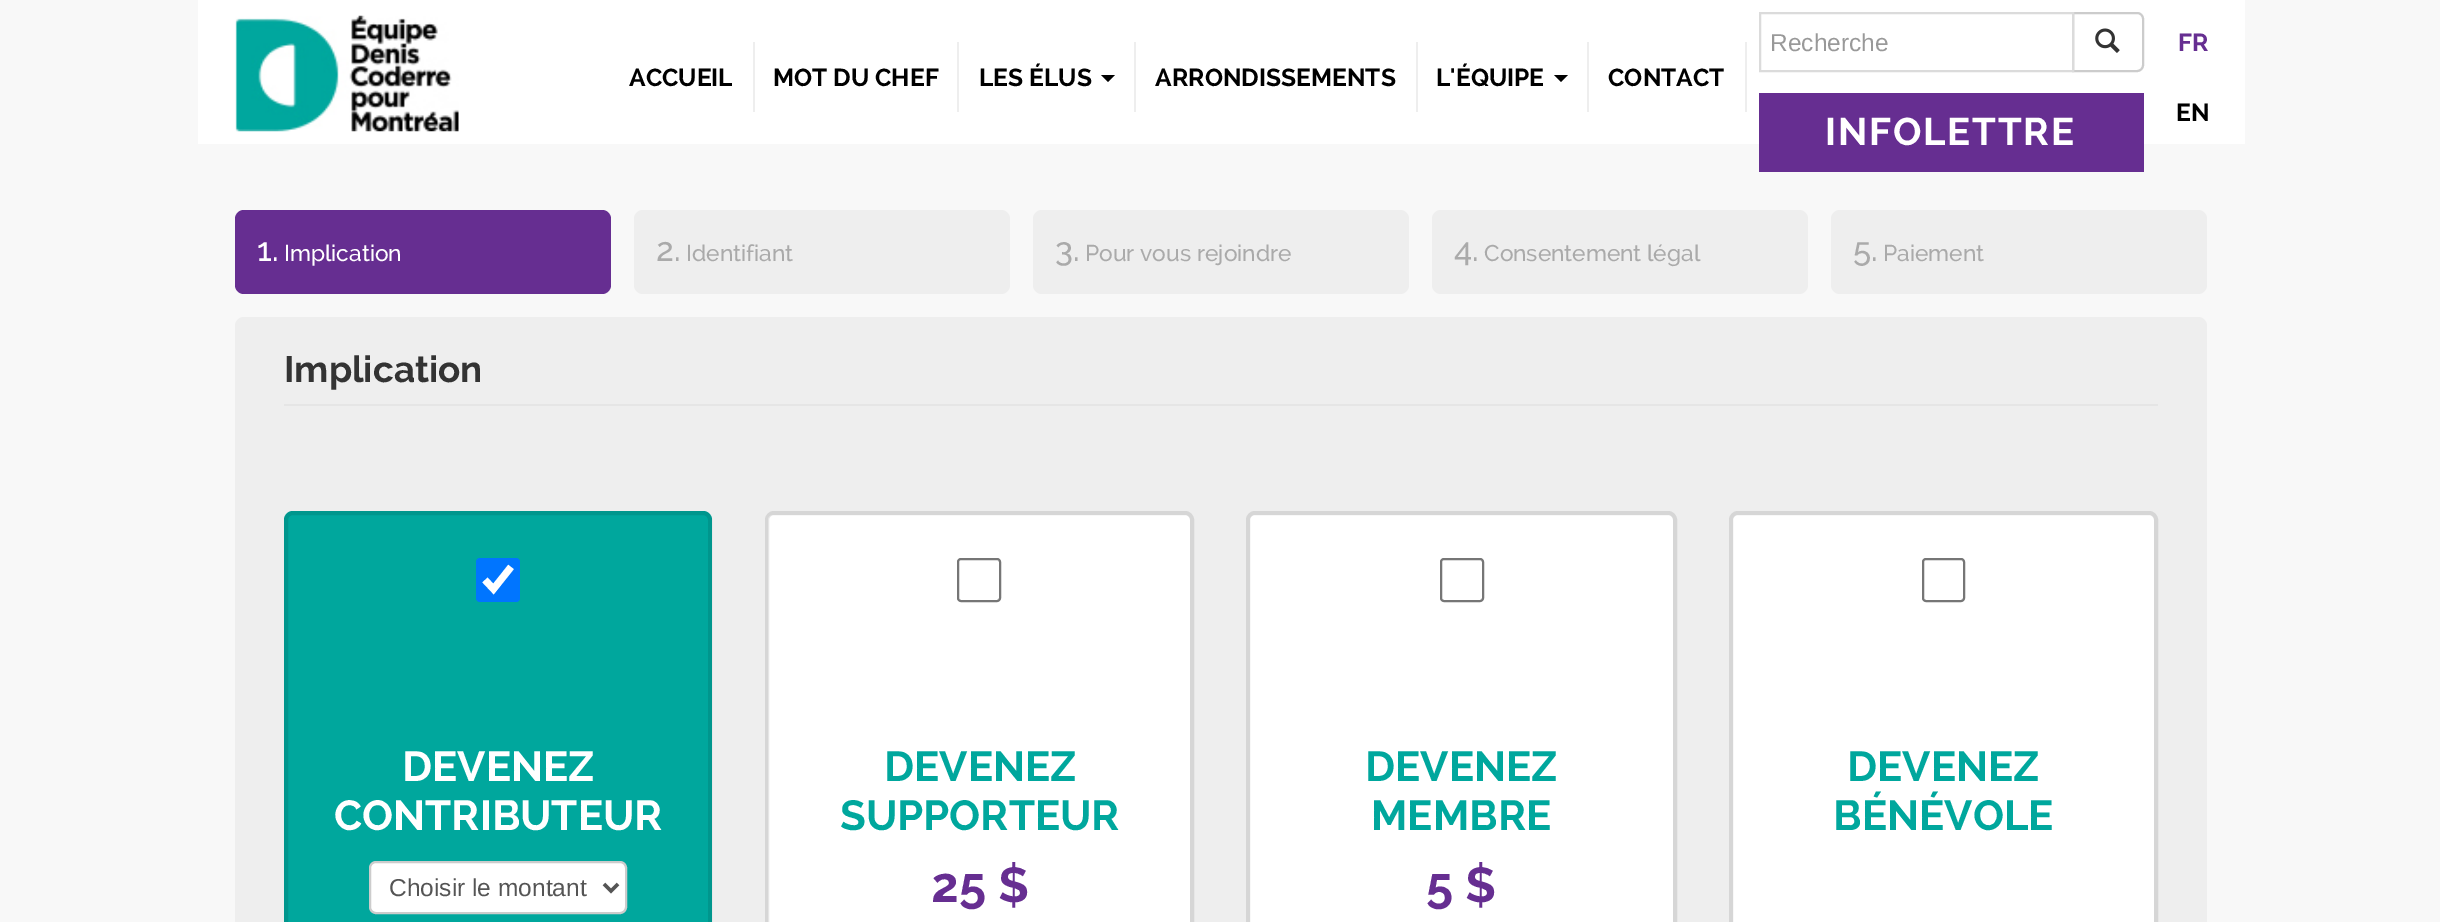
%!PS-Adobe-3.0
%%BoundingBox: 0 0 2440 922
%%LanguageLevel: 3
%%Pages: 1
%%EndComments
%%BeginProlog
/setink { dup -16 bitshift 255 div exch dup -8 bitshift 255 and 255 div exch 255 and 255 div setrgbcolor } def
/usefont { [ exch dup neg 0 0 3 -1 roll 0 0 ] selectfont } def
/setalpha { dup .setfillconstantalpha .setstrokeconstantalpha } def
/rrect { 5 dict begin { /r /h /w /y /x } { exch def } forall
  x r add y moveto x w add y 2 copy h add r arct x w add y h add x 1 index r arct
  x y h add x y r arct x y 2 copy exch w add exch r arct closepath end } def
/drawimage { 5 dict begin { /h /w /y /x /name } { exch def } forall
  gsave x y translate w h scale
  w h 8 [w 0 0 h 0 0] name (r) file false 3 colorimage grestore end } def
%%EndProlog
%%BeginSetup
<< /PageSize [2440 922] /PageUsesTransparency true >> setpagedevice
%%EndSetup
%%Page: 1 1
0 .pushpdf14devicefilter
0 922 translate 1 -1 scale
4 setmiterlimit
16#F8F8F8 setink
0 0 2440 922 rectfill
16#FFFFFF setink
198 0 2047 144 rectfill
(img1.raw) 235 15 224 117 drawimage
16#EEEEEE setink
753 42 2 70 rectfill
/Raleway-Bold 24.5 usefont
16#000000 setink
629 86 moveto (ACCUEIL) show
16#EEEEEE setink
957 42 2 70 rectfill
16#000000 setink
773 86 moveto (MOT DU CHEF) show
16#EEEEEE setink
1134 42 2 70 rectfill
16#000000 setink
979 86 moveto (LES ÉLUS) show
1101 75 moveto 1115 75 lineto 1108 82 lineto closepath fill
16#EEEEEE setink
1416 42 2 70 rectfill
16#000000 setink
1155 86 moveto (ARRONDISSEMENTS) show
16#EEEEEE setink
1587 42 2 70 rectfill
16#000000 setink
1436 86 moveto (L'ÉQUIPE) show
1554 75 moveto 1568 75 lineto 1561 82 lineto closepath fill
16#EEEEEE setink
1745 42 2 70 rectfill
16#000000 setink
1608 86 moveto (CONTACT) show
16#CCCCCC setink
2 setlinewidth
2073 13 moveto 2137 13 lineto 2140.5 13 2143 15.5 2143 19 curveto 2143 65 lineto 2143 68.5 2140.5 71 2137 71 curveto 2073 71 lineto closepath stroke
16#DBDBDB setink
1760 13 313 58 rectstroke
/LiberationSans-Regular 24.5 usefont
16#999999 setink
1770 51 moveto (Recherche) show
(img2.raw) 2095 28 25 25 drawimage
16#662E91 setink
1759 93 385 79 rectfill
/Raleway-Bold 38.5 usefont
16#FFFFFF setink
1825 145 moveto 1.75 0 (INFOLETTRE) ashow
/Raleway-Bold 24.5 usefont
16#662E91 setink
2178 51 moveto (FR) show
16#000000 setink
2176 121 moveto (EN) show
16#662E91 setink
235 210 376 84 9 rrect fill
/Raleway-Medium 33 usefont
16#FFFFFF setink
257 261 moveto (1.) show
/Raleway-Medium 22.75 usefont
284 261 moveto (Implication) show
16#EEEEEE setink
634 210 376 84 9 rrect fill
/Raleway-Medium 33 usefont
16#AAAAAA setink
656 261 moveto (2.) show
/Raleway-Medium 22.75 usefont
686 261 moveto (Identifiant) show
16#EEEEEE setink
1033 210 376 84 9 rrect fill
/Raleway-Medium 33 usefont
16#AAAAAA setink
1055 261 moveto (3.) show
/Raleway-Medium 22.75 usefont
1085 261 moveto (Pour vous rejoindre) show
16#EEEEEE setink
1432 210 376 84 9 rrect fill
/Raleway-Medium 33 usefont
16#AAAAAA setink
1454 261 moveto (4.) show
/Raleway-Medium 22.75 usefont
1484 261 moveto (Consentement légal) show
16#EEEEEE setink
1831 210 376 84 9 rrect fill
/Raleway-Medium 33 usefont
16#AAAAAA setink
1853 261 moveto (5.) show
/Raleway-Medium 22.75 usefont
1883 261 moveto (Paiement) show
16#EEEEEE setink
235 317 1972 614 9 rrect fill
16#E5E5E5 setink
284 404 1874 2 rectfill
/Raleway-Bold 36.75 usefont
16#333333 setink
284 382 moveto (Implication) show
16#00A79D setink
284 511 428 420 9 rrect fill
0.1 setalpha
16#000000 setink
4 setlinewidth
286 513 424 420 7 rrect stroke
1 setalpha
16#0075FF setink
476 558 44 44 4 rrect fill
16#FFFFFF setink
7 setlinewidth
485 580 moveto 493.5 589 lineto 511 567 lineto stroke
/Raleway-Bold 42 usefont
402 781 moveto (DEVENEZ) show
334 830 moveto (CONTRIBUTEUR) show
370 862 256 51 6 rrect gsave fill grestore
16#CCCCCC setink
2 setlinewidth
stroke
16#555555 setink
3.5 setlinewidth
604 884 moveto 611 891 lineto 618 884 lineto stroke
/LiberationSans-Regular 24.5 usefont
389 896 moveto (Choisir le montant) show
16#FFFFFF setink
768 515 422 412 5 rrect fill
0.1 setalpha
16#000000 setink
4 setlinewidth
767 513 425 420 7 rrect stroke
1 setalpha
16#767676 setink
2 setlinewidth
958 559 42 42 3 rrect stroke
/Raleway-Bold 42 usefont
16#00A79D setink
884 781 moveto (DEVENEZ) show
840 830 moveto (SUPPORTEUR) show
/Raleway-Bold 49 usefont
16#662E91 setink
931 902 moveto (25 $) show
16#FFFFFF setink
1250 515 423 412 5 rrect fill
0.1 setalpha
16#000000 setink
4 setlinewidth
1248 513 427 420 7 rrect stroke
1 setalpha
16#767676 setink
2 setlinewidth
1441 559 42 42 3 rrect stroke
/Raleway-Bold 42 usefont
16#00A79D setink
1365 781 moveto (DEVENEZ) show
1371 830 moveto (MEMBRE) show
/Raleway-Bold 49 usefont
16#662E91 setink
1426 902 moveto (5 $) show
16#FFFFFF setink
1733 515 421 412 5 rrect fill
0.1 setalpha
16#000000 setink
4 setlinewidth
1731 513 425 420 7 rrect stroke
1 setalpha
16#767676 setink
2 setlinewidth
1923 559 41 42 3 rrect stroke
/Raleway-Bold 42 usefont
16#00A79D setink
1847 781 moveto (DEVENEZ) show
1833 830 moveto (BÉNÉVOLE) show
.poppdf14devicefilter showpage
%%EOF
